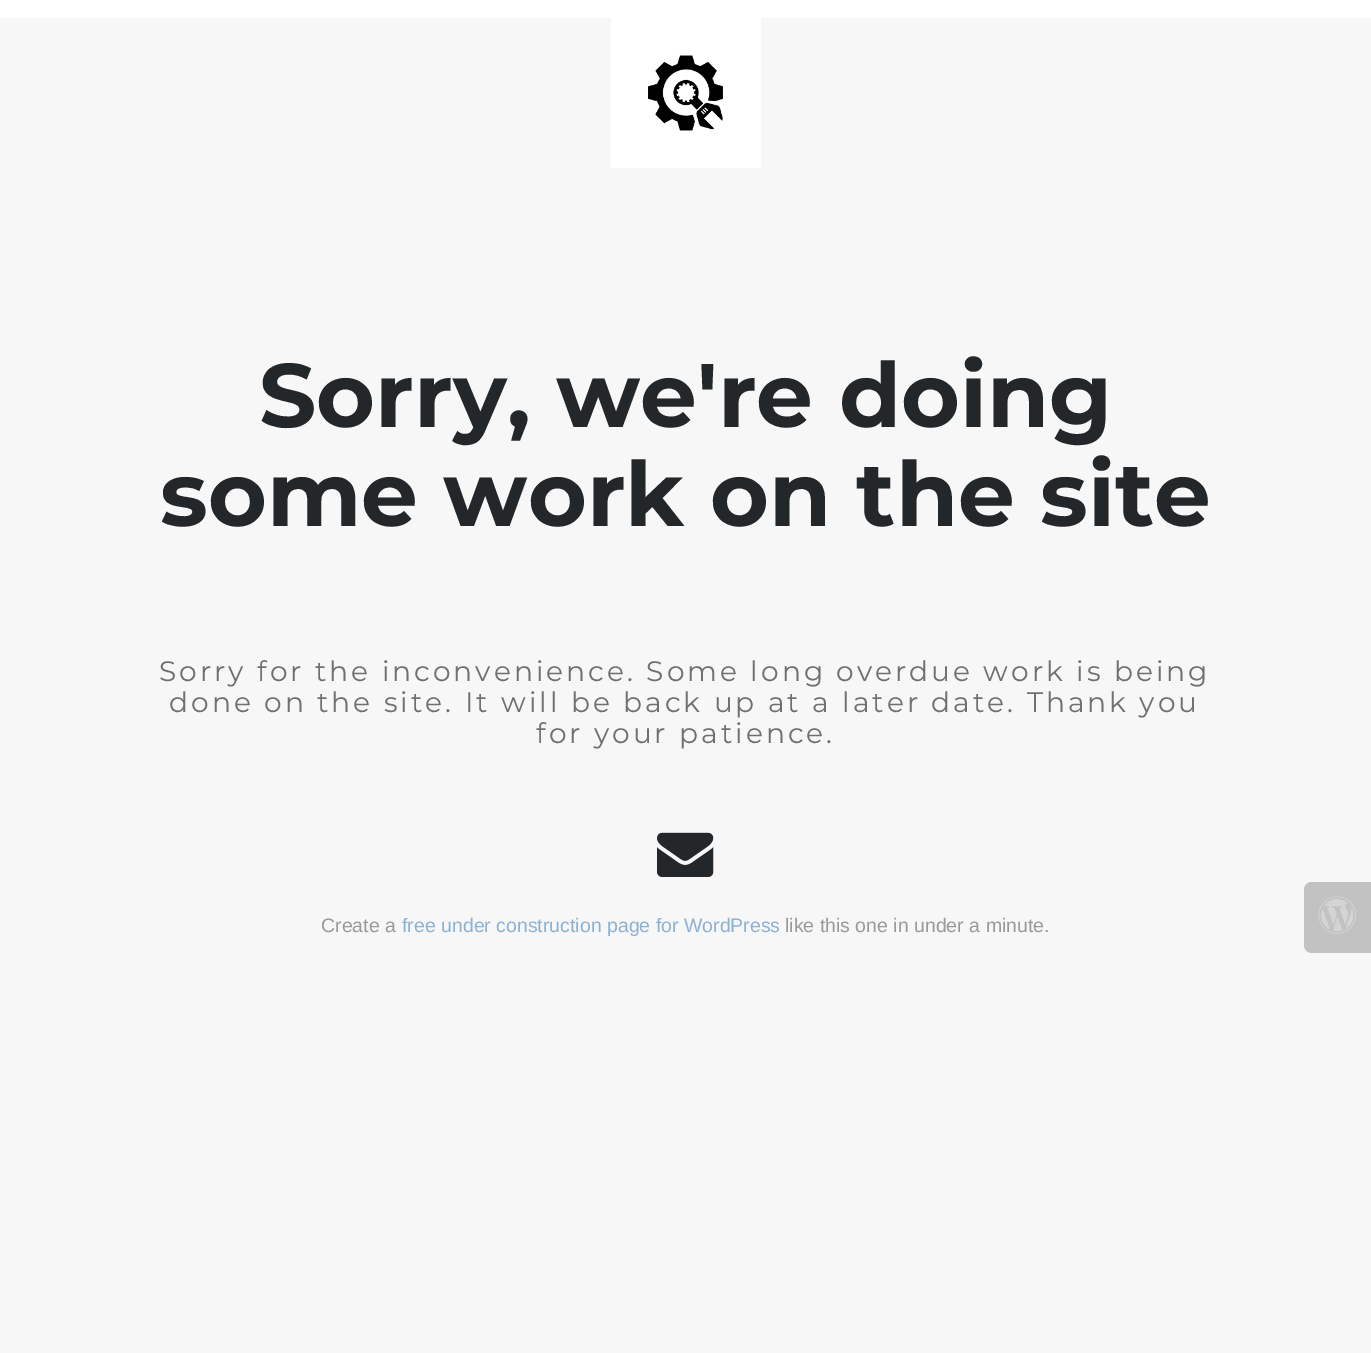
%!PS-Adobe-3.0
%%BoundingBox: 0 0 1371 1353
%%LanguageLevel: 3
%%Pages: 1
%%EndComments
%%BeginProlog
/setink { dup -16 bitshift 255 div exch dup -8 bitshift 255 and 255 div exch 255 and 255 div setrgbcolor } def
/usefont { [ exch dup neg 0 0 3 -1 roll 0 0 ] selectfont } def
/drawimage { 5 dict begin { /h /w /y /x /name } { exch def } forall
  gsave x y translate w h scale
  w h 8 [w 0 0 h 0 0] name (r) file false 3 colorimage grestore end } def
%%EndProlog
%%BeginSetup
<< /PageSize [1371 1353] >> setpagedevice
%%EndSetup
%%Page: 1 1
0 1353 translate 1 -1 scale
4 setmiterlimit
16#F7F7F7 setink
0 0 1371 1353 rectfill
16#FFFFFF setink
0 0 1371 18 rectfill
611 18 150 150 rectfill
(img1.raw) 648 55 75 76 drawimage
/Montserrat-Thin 90 usefont
16#23272A setink
259 427 moveto (Sorry, we're doing) show
160 526 moveto (some work on the site) show
/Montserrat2-Thin 28.1 usefont
16#707070 setink
159 681 moveto 3 0 (Sorry for the inconvenience. Some long overdue work is being) ashow
169 712 moveto 3 0 (done on the site. It will be back up at a later date. Thank you) ashow
536 743 moveto 3 0 (for your patience.) ashow
(img2.raw) 657 832 57 45 drawimage
/LiberationSans-Regular 19.5 usefont
16#9A9A9A setink
321 932 moveto (Create a) show
16#8BB2D4 setink
402 932 moveto (free under construction page for WordPress) show
16#9A9A9A setink
785 932 moveto (like this one in under a minute.) show
16#C2C2C2 setink
1312 882 moveto 1371 882 lineto 1371 953 lineto 1312 953 lineto 1307.5 953 1304 949.5 1304 945 curveto 1304 890 lineto 1304 885.5 1307.5 882 1312 882 curveto closepath fill
(img3.raw) 1318 896 38 38 drawimage
showpage
%%EOF
